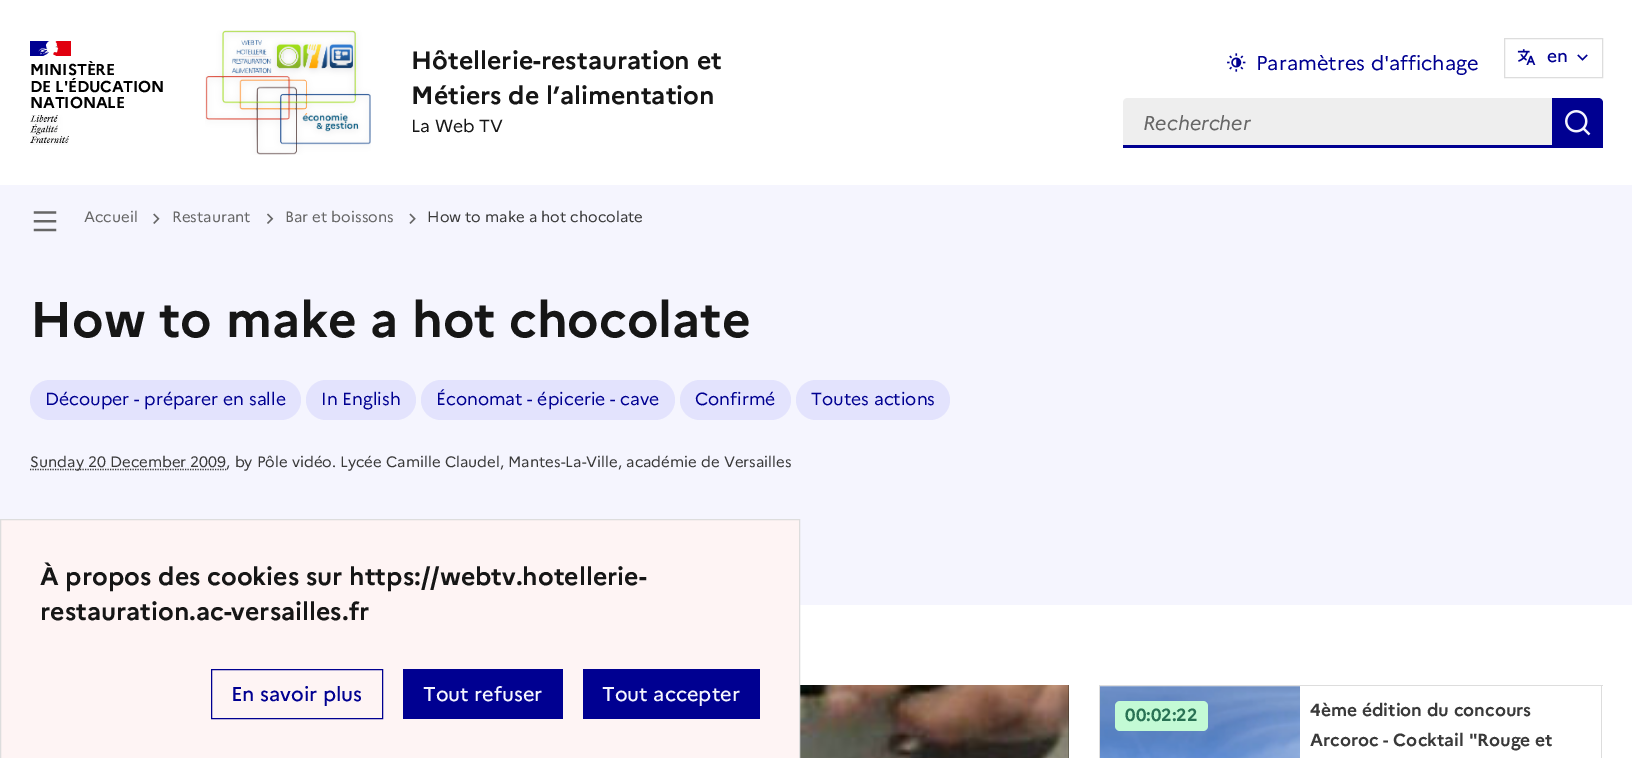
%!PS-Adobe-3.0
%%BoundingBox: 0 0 1632 758
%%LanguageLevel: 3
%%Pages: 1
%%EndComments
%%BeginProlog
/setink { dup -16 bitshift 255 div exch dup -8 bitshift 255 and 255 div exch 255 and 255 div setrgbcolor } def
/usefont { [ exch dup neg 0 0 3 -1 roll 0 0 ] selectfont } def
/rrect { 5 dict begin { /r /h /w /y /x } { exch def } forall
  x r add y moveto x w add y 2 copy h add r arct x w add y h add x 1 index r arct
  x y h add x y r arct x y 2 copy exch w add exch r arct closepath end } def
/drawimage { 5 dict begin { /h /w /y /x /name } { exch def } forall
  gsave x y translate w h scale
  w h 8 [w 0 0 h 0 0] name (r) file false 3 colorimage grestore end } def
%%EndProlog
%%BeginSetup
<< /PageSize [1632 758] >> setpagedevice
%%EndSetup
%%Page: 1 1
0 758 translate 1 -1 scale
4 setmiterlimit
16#FFFFFF setink
0 0 1632 758 rectfill
16#000091 setink
30 41 20 15 rectfill
16#E1000F setink
53 41 18 15 rectfill
(img1.raw) 38 41 21 15 drawimage
/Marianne-Bold 15.75 usefont
16#000000 setink
30 75 moveto -0.2 0 (MINISTÈRE) ashow
30 92 moveto -0.2 0 (DE L'ÉDUCATION) ashow
30 108 moveto -0.2 0 (NATIONALE) ashow
(img2.raw) 30 115 39 30 drawimage
(img3.raw) 205 30 166 125 drawimage
/Marianne-Bold 25 usefont
16#161616 setink
411 69 moveto (Hôtellerie-restauration et) show
411 104 moveto (Métiers de l’alimentation) show
/Marianne-Regular 17.5 usefont
411 132 moveto (La Web TV) show
(img4.raw) 1227 53 19 19 drawimage
/Marianne-Regular 20 usefont
16#000091 setink
1256 70 moveto (Paramètres d'affichage) show
16#DDDDDD setink
1504.5 38.5 98 39 rectstroke
(img5.raw) 1517 49 19 16 drawimage
/Marianne-Medium 17.5 usefont
16#000091 setink
1547 62 moveto (en) show
(img6.raw) 1577 54 11 7 drawimage
16#EEEEEE setink
1128 98 moveto 1553 98 lineto 1553 148 lineto 1123 148 lineto 1123 103 lineto 1123 100 1125 98 1128 98 curveto closepath fill
16#000091 setink
1123 145 moveto 1123 148 lineto 1553 148 lineto 1553 98 lineto 1552 98 lineto 1552 145 lineto closepath fill
/Marianne-Italic 20 usefont
16#666666 setink
1143 130 moveto (Rechercher) show
16#000091 setink
1553 98 moveto 1598 98 lineto 1601 98 1603 100 1603 103 curveto 1603 148 lineto 1553 148 lineto closepath fill
(img7.raw) 1565 110 26 26 drawimage
16#F5F5FE setink
0 185 1632 420 rectfill
(img8.raw) 33 211 24 21 drawimage
/Marianne-Regular 15 usefont
16#666666 setink
84 222 moveto (Accueil) show
(img9.raw) 153 213 7 11 drawimage
172 222 moveto (Restaurant) show
(img10.raw) 267 213 7 11 drawimage
285 222 moveto (Bar et boissons) show
(img11.raw) 409 213 7 11 drawimage
16#3A3A3A setink
427 222 moveto (How to make a hot chocolate) show
/Marianne-Bold 50 usefont
16#161616 setink
30 337 moveto (How to make a hot chocolate) show
16#E3E3FD setink
30 380 271 40 20 rrect fill
/Marianne-Regular 17.5 usefont
16#000091 setink
45 405 moveto (Découper - préparer en salle) show
16#E3E3FD setink
306 380 110 40 20 rrect fill
16#000091 setink
321 405 moveto (In English) show
16#E3E3FD setink
421 380 254 40 20 rrect fill
16#000091 setink
436 405 moveto (Économat - épicerie - cave) show
16#E3E3FD setink
680 380 111 40 20 rrect fill
16#000091 setink
695 405 moveto (Confirmé) show
16#E3E3FD setink
796 380 154 40 20 rrect fill
16#000091 setink
811 405 moveto (Toutes actions) show
16#3A3A3A setink
1.2 setlinewidth
[1.25 1.25] 0 setdash
30 469.5 moveto 226.5 469.5 lineto stroke
/Marianne-Regular 15 usefont
30 467 moveto (Sunday 20 December 2009, by Pôle vidéo. Lycée Camille Claudel, Mantes-La-Ville, académie de Versailles) show
(img12.raw) 800 685 269 73 drawimage
[
    [1099 685 504 1 16#DDDDDD]
    [1601 685 1 73 16#DDDDDD]
    [1099 685 1 73 16#DDDDDD]
] { aload pop setink rectfill } forall
(img13.raw) 1100 686 200 72 drawimage
16#C3FAD5 setink
1115 701 93 30 5 rrect fill
/Marianne-Bold 17.5 usefont
16#297254 setink
1125 721 moveto (00:02:22) show
16#3A3A3A setink
1310 716 moveto (4ème édition du concours) show
1310 746 moveto (Arcoroc - Cocktail "Rouge et) show
16#FEF4F4 setink
0.5 519.5 moveto 799.5 519.5 lineto 799.5 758.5 lineto 0.5 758.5 lineto closepath gsave fill grestore
16#DDDDDD setink
1 setlinewidth
[] 0 setdash
stroke
/Marianne-Bold 25 usefont
16#161616 setink
40 585 moveto (À propos des cookies sur https://webtv.hotellerie-) show
40 620 moveto (restauration.ac-versailles.fr) show
16#000091 setink
211.5 669.5 171 49 rectstroke
/Marianne-Medium 20 usefont
231 701 moveto (En savoir plus) show
403 669 160 50 rectfill
16#F5F5FE setink
423 701 moveto (Tout refuser) show
16#000091 setink
583 669 177 50 rectfill
16#F5F5FE setink
602 701 moveto (Tout accepter) show
showpage
%%EOF
